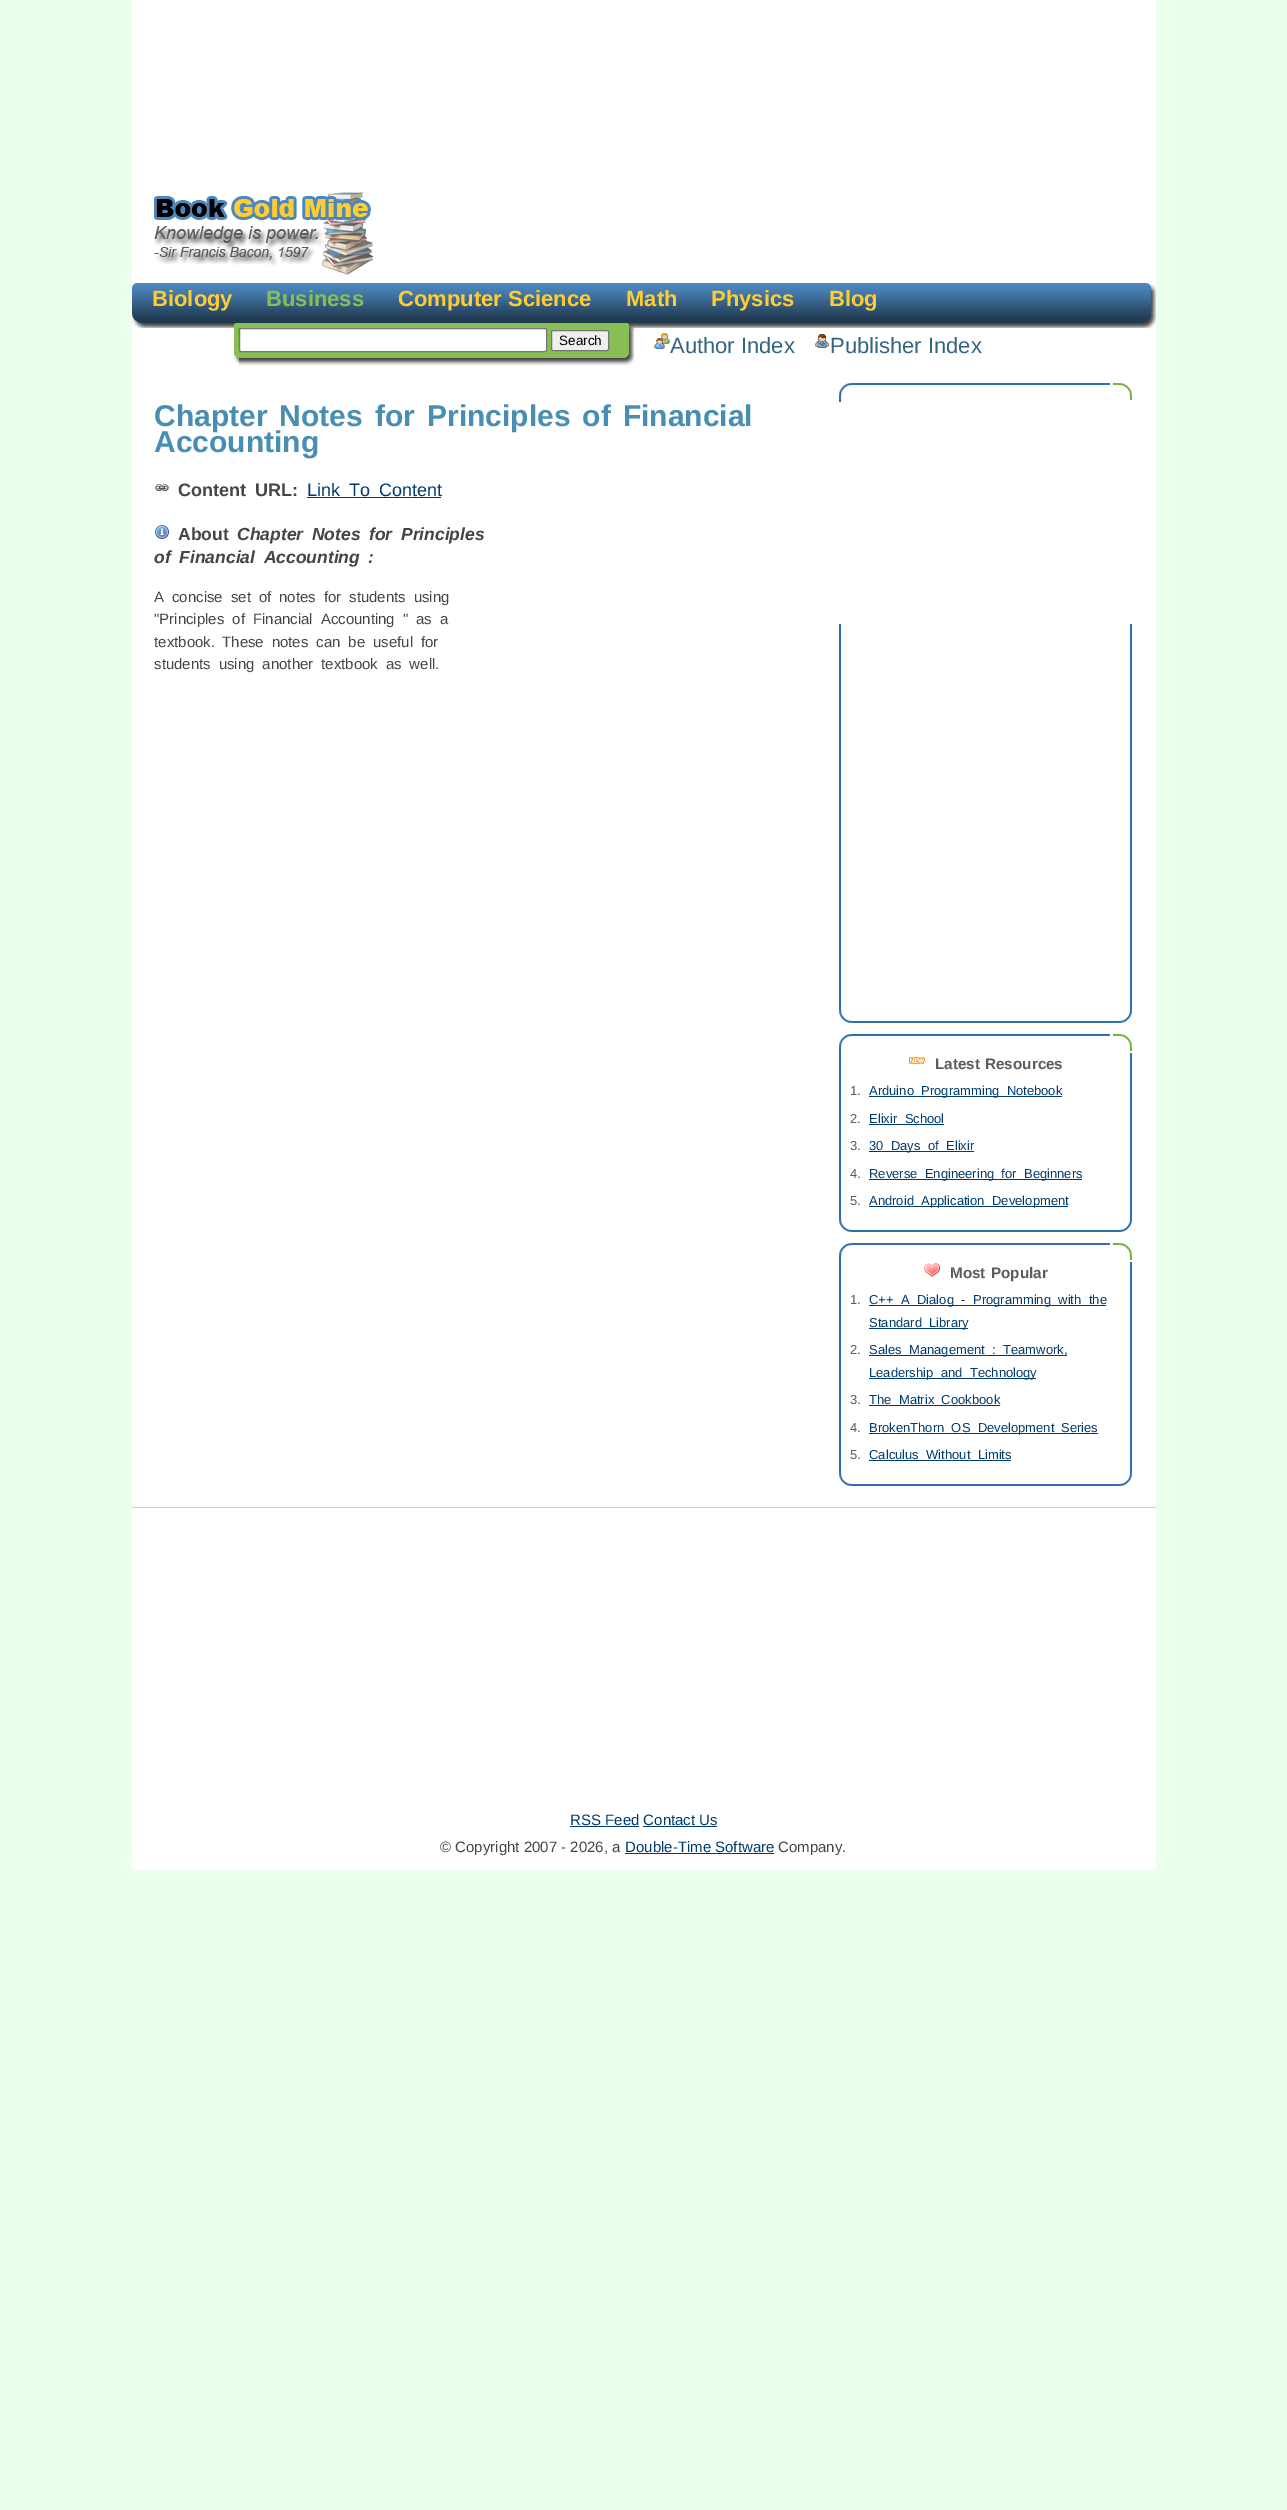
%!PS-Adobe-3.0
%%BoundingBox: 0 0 1287 2510
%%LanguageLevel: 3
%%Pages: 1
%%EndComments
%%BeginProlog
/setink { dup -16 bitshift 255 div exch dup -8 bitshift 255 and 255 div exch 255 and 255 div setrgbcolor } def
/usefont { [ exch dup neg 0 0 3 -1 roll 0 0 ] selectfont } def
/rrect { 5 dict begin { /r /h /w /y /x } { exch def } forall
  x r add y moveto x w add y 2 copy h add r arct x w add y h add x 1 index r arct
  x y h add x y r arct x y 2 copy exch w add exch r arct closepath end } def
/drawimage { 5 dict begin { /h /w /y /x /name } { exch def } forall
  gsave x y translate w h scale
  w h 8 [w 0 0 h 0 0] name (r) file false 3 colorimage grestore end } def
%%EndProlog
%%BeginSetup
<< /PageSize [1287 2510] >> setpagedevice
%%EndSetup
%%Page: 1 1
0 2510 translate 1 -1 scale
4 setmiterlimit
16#ECFFEC setink
0 0 1287 2510 rectfill
16#FFFFFF setink
132 0 1024 1870 rectfill
(img1.raw) 154 192 220 83 drawimage
(img2.raw) 145 283 997 45 drawimage
(img3.raw) 132 283 13 45 drawimage
/LiberationSans-Bold 22 usefont
16#FFCC33 setink
152 306 moveto (Biology) show
16#87BF55 setink
266 306 moveto (Business) show
16#FFCC33 setink
[
    [(Computer Science) 398 306]
    [(Math) 626 306]
    [(Physics) 711 306]
    [(Blog) 829 306]
] { aload pop moveto show } forall
(img4.raw) 1142 283 14 45 drawimage
(img5.raw) 239 323 387 43 drawimage
(img6.raw) 234 323 5 43 drawimage
16#FFFFFF setink
239.5 328.5 307 23 1.5 rrect gsave fill grestore
16#767676 setink
stroke
16#EFEFEF setink
551.5 330.5 57 20 1.5 rrect gsave fill grestore
16#767676 setink
stroke
/LiberationSans-Regular 13.5 usefont
16#000000 setink
559 345 moveto (Search) show
(img7.raw) 626 323 8 43 drawimage
(img8.raw) 654 333 16 16 drawimage
/LiberationSans-Regular 22 usefont
16#336580 setink
670 353 moveto (Author Index) show
(img9.raw) 815 334 14 14 drawimage
830 353 moveto (Publisher Index) show
/LiberationSans-Bold 30 usefont
16#488EB2 setink
154 426 moveto 3.75 0 32 (Chapter Notes for Principles of Financial) widthshow
154 452 moveto (Accounting) show
(img10.raw) 155 484 14 7 drawimage
/LiberationSans-Bold 18 usefont
16#454545 setink
178 496 moveto 3.75 0 32 (Content URL:) widthshow
/LiberationSans-Regular 18 usefont
16#003B6E setink
307 496 moveto 3.75 0 32 (Link To Content) widthshow
307 497 134 1 rectfill
(img11.raw) 155 525 14 14 drawimage
/LiberationSans-Bold 17.5 usefont
16#454545 setink
178 540 moveto (About) show
/LiberationSans-BoldItalic 17.5 usefont
237 540 moveto 3.75 0 32 (Chapter Notes for Principles) widthshow
154 563 moveto 3.75 0 32 (of Financial Accounting :) widthshow
/LiberationSans-Regular 15 usefont
154 602 moveto 3.75 0 32 (A concise set of notes for students using) widthshow
154 624 moveto 3.75 0 32 ("Principles of Financial Accounting " as a) widthshow
154 647 moveto (textbook.) show
222 647 moveto 3.75 0 32 (These notes can be useful for) widthshow
154 669 moveto 3.75 0 32 (students using another textbook as well.) widthshow
(img12.raw) 839 383 293 19 drawimage
(img13.raw) 839 624 293 399 drawimage
(img12.raw) 839 1034 293 19 drawimage
(img14.raw) 839 1053 293 179 drawimage
(img15.raw) 909 1057 16 7 drawimage
/LiberationSans-Bold 15.25 usefont
16#5B5B5B setink
935 1069 moveto (Latest) show
985 1069 moveto (Resources) show
/LiberationSans-Regular 13 usefont
850 1095 moveto (1.) show
16#003B6E setink
869 1096 193 1 rectfill
869 1095 moveto 3.75 0 32 (Arduino Programming Notebook) widthshow
16#5B5B5B setink
850 1123 moveto (2.) show
16#003B6E setink
869 1123 moveto 3.75 0 32 (Elixir School) widthshow
869 1124 75 1 rectfill
16#5B5B5B setink
850 1150 moveto (3.) show
16#003B6E setink
869 1151 105 1 rectfill
869 1150 moveto 3.75 0 32 (30 Days of Elixir) widthshow
16#5B5B5B setink
850 1178 moveto (4.) show
16#003B6E setink
869 1179 213 1 rectfill
869 1178 moveto 3.75 0 32 (Reverse Engineering for Beginners) widthshow
16#5B5B5B setink
850 1205 moveto (5.) show
16#003B6E setink
869 1206 199 1 rectfill
869 1205 moveto 3.75 0 32 (Android Application Development) widthshow
(img12.raw) 839 1243 293 19 drawimage
(img16.raw) 839 1262 293 224 drawimage
(img17.raw) 924 1263 16 14 drawimage
/LiberationSans-Bold 15.25 usefont
16#5B5B5B setink
950 1278 moveto (Most) show
991 1278 moveto (Popular) show
/LiberationSans-Regular 13 usefont
850 1304 moveto (1.) show
16#003B6E setink
869 1305 237 1 rectfill
869 1304 moveto 3.75 0 32 (C++ A Dialog - Programming with the) widthshow
869 1328 99 1 rectfill
869 1327 moveto 3.75 0 32 (Standard Library) widthshow
16#5B5B5B setink
850 1354 moveto (2.) show
16#003B6E setink
869 1355 198 1 rectfill
869 1354 moveto 3.75 0 32 (Sales Management : Teamwork,) widthshow
869 1378 167 1 rectfill
869 1377 moveto 3.75 0 32 (Leadership and Technology) widthshow
16#5B5B5B setink
850 1404 moveto (3.) show
16#003B6E setink
869 1404 moveto 3.75 0 32 (The Matrix Cookbook) widthshow
869 1405 131 1 rectfill
16#5B5B5B setink
850 1432 moveto (4.) show
16#003B6E setink
869 1433 229 1 rectfill
869 1432 moveto 3.75 0 32 (BrokenThorn OS Development) widthshow
1061 1432 moveto (Series) show
16#5B5B5B setink
850 1459 moveto (5.) show
16#003B6E setink
869 1459 moveto 3.75 0 32 (Calculus Without Limits) widthshow
869 1460 142 1 rectfill
16#CCCCCC setink
132 1507 1024 1 rectfill
/LiberationSans-Regular 15 usefont
16#003B6E setink
570 1825 moveto (RSS Feed Contact Us) show
570 1826 69 1 rectfill
643 1826 74 1 rectfill
16#454545 setink
440 1852 moveto (© Copyright 2007 - 2026, a) show
16#003B6E setink
625 1852 moveto (Double-Time Software) show
625 1853 149 1 rectfill
16#454545 setink
778 1852 moveto (Company.) show
showpage
%%EOF
